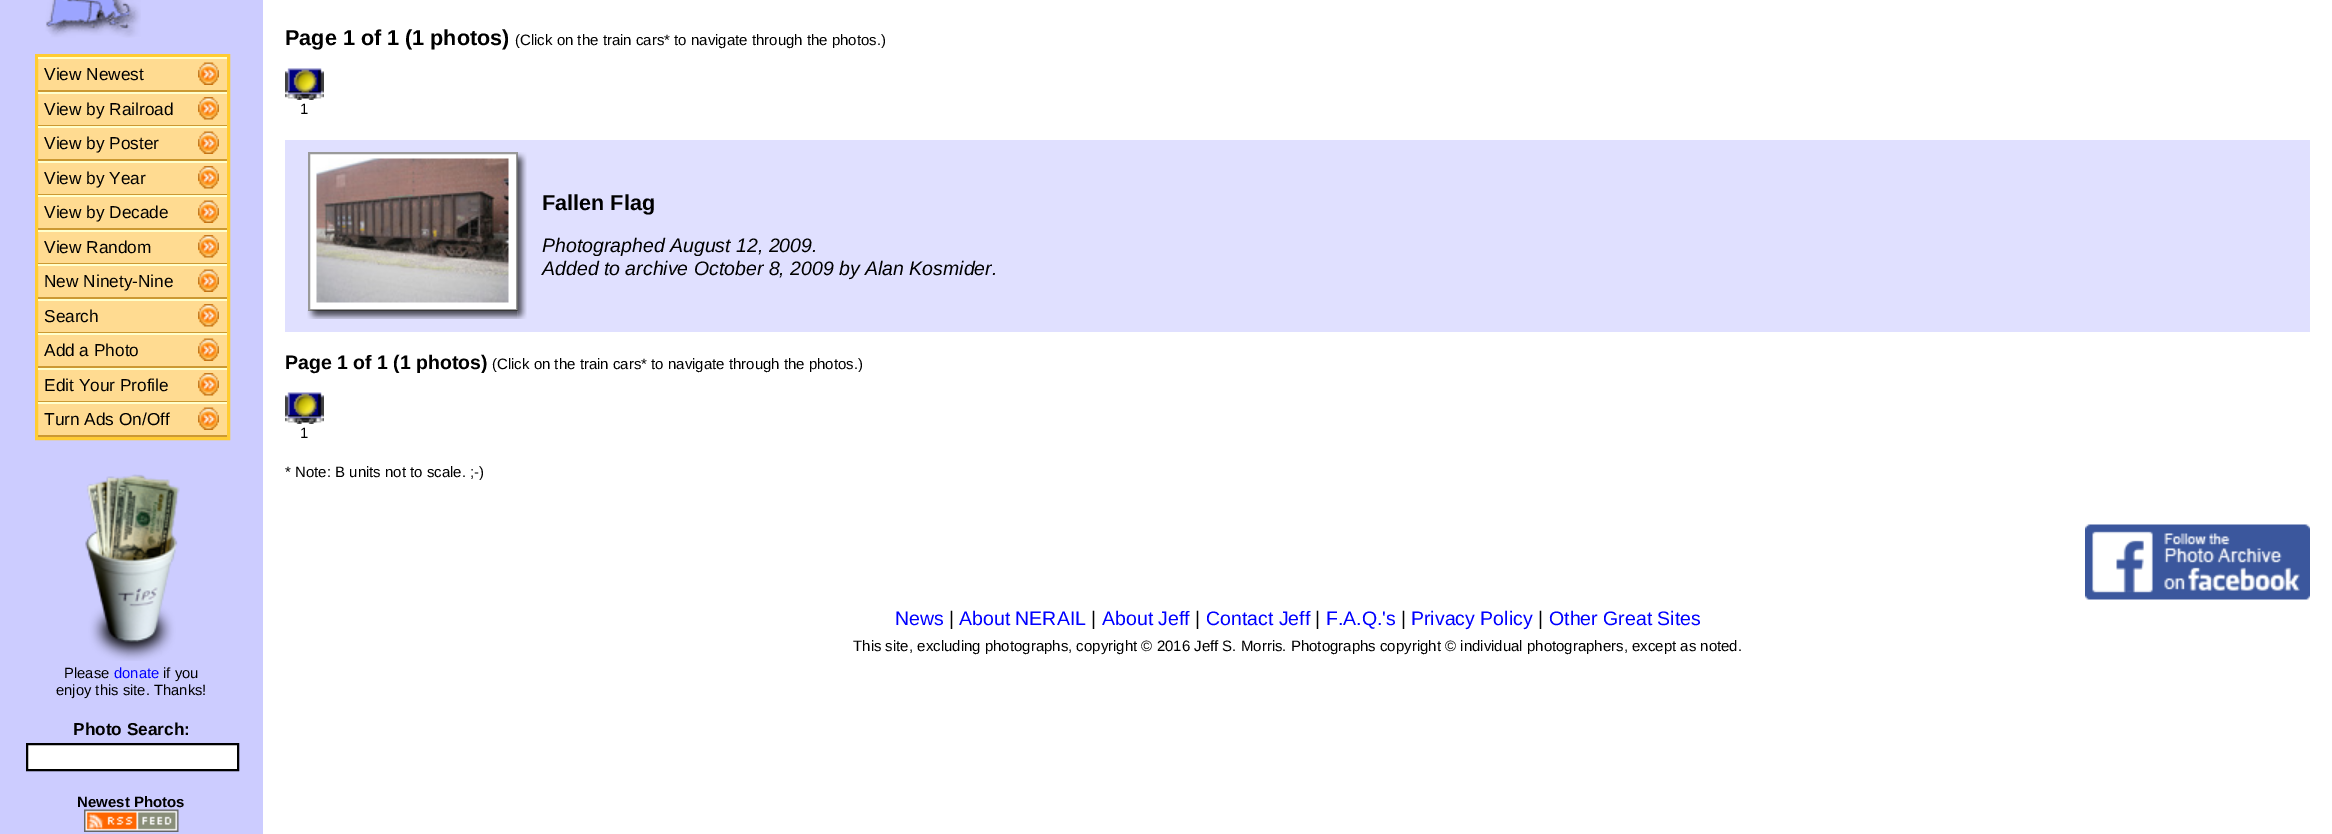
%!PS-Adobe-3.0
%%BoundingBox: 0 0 2332 834
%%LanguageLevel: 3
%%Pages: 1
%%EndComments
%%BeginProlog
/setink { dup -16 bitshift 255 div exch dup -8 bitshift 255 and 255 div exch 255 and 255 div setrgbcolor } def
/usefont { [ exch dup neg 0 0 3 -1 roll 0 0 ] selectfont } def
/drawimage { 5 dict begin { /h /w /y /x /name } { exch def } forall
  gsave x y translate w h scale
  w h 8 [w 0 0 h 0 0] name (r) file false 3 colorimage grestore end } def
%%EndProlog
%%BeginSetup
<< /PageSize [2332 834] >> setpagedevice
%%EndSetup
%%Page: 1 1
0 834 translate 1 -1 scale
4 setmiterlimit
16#FFFFFF setink
0 0 2332 834 rectfill
16#CCCCFF setink
0 0 263 834 rectfill
(img1.raw) 45 0 96 38 drawimage
16#FFDB91 setink
38 59 189 376 rectfill
16#FFCC33 setink
3 setlinewidth
36.5 55.5 192 383 rectstroke
16#FFFFCC setink
38 57 189 2 rectfill
16#CC9933 setink
38 90 189 2 rectfill
/LiberationSans-Regular 17.25 usefont
16#000000 setink
44 80 moveto (View Newest) show
(img2.raw) 198 62 21 23 drawimage
16#FFFFCC setink
38 92 189 2 rectfill
16#CC9933 setink
38 125 189 1 rectfill
16#000000 setink
44 115 moveto (View by Railroad) show
(img3.raw) 198 97 21 23 drawimage
16#FFFFCC setink
38 126 189 2 rectfill
16#CC9933 setink
38 159 189 2 rectfill
16#000000 setink
44 149 moveto (View by Poster) show
(img2.raw) 198 131 21 23 drawimage
16#FFFFCC setink
38 161 189 2 rectfill
16#CC9933 setink
38 194 189 1 rectfill
16#000000 setink
44 184 moveto (View by Year) show
(img3.raw) 198 166 21 23 drawimage
16#FFFFCC setink
38 195 189 2 rectfill
16#CC9933 setink
38 228 189 2 rectfill
16#000000 setink
44 218 moveto (View by Decade) show
(img2.raw) 198 200 21 23 drawimage
16#FFFFCC setink
38 230 189 2 rectfill
16#CC9933 setink
38 263 189 1 rectfill
16#000000 setink
44 253 moveto (View Random) show
(img3.raw) 198 235 21 23 drawimage
16#FFFFCC setink
38 264 189 2 rectfill
16#CC9933 setink
38 297 189 2 rectfill
16#000000 setink
44 287 moveto (New Ninety-Nine) show
(img2.raw) 198 269 21 23 drawimage
16#FFFFCC setink
38 299 189 2 rectfill
16#CC9933 setink
38 332 189 1 rectfill
16#000000 setink
44 322 moveto (Search) show
(img3.raw) 198 304 21 23 drawimage
16#FFFFCC setink
38 333 189 2 rectfill
16#CC9933 setink
38 366 189 2 rectfill
16#000000 setink
44 356 moveto (Add a Photo) show
(img2.raw) 198 338 21 23 drawimage
16#FFFFCC setink
38 368 189 2 rectfill
16#CC9933 setink
38 401 189 1 rectfill
16#000000 setink
44 391 moveto (Edit Your Profile) show
(img3.raw) 198 373 21 23 drawimage
16#FFFFCC setink
38 402 189 2 rectfill
16#CC9933 setink
38 435 189 2 rectfill
16#000000 setink
44 425 moveto (Turn Ads On/Off) show
(img2.raw) 198 407 21 23 drawimage
(img4.raw) 85 474 95 187 drawimage
/LiberationSans-Regular 14.8 usefont
64 678 moveto (Please) show
16#0000FF setink
114 678 moveto (donate) show
16#000000 setink
163 678 moveto (if you) show
56 695 moveto (enjoy this site. Thanks!) show
/LiberationSans-Bold 17.25 usefont
73 735 moveto (Photo Search:) show
16#FFFFFF setink
27 744 moveto 238 744 lineto 238 770 lineto 27 770 lineto closepath gsave fill grestore
16#000000 setink
2 setlinewidth
stroke
/LiberationSans-Bold 15 usefont
77 807 moveto (Newest Photos) show
(img5.raw) 84 809 95 23 drawimage
/LiberationSans-Bold 21.6 usefont
285 45 moveto (Page 1 of 1 \(1 photos\)) show
/LiberationSans-Regular 15 usefont
515 45 moveto (\(Click on the train cars* to navigate through the photos.\)) show
(img6.raw) 285 68 39 32 drawimage
300 114 moveto (1) show
16#E0E0FF setink
285 140 2025 192 rectfill
16#FFFFFF setink
309 153 moveto 517 153 lineto 517 310 lineto 309 310 lineto closepath gsave fill grestore
16#9A9A9A setink
stroke
(img7.raw) 316 158 193 145 drawimage
(img8.raw) 517 152 10 158 drawimage
(img9.raw) 307 310 211 9 drawimage
(img10.raw) 517 310 10 9 drawimage
/LiberationSans-Bold 21.6 usefont
16#000000 setink
542 210 moveto (Fallen Flag) show
/LiberationSans-Italic 19.5 usefont
542 252 moveto (Photographed August 12, 2009.) show
542 275 moveto (Added to archive October 8, 2009 by Alan Kosmider.) show
/LiberationSans-Bold 19.5 usefont
285 369 moveto (Page 1 of 1 \(1 photos\)) show
/LiberationSans-Regular 15 usefont
492 369 moveto (\(Click on the train cars* to navigate through the photos.\)) show
(img6.raw) 285 392 39 32 drawimage
300 438 moveto (1) show
285 477 moveto (* Note: B units not to scale. ;-\)) show
(img11.raw) 2085 524 225 76 drawimage
/LiberationSans-Regular 19.5 usefont
16#0000FF setink
895 625 moveto (News) show
16#000000 setink
949 625 moveto (|) show
16#0000FF setink
959 625 moveto (About NERAIL) show
16#000000 setink
1091 625 moveto (|) show
16#0000FF setink
1102 625 moveto (About Jeff) show
16#000000 setink
1195 625 moveto (|) show
16#0000FF setink
1206 625 moveto (Contact Jeff) show
16#000000 setink
1315 625 moveto (|) show
16#0000FF setink
1326 625 moveto (F.A.Q.'s) show
16#000000 setink
1401 625 moveto (|) show
16#0000FF setink
1411 625 moveto (Privacy Policy) show
16#000000 setink
1538 625 moveto (|) show
16#0000FF setink
1549 625 moveto (Other Great Sites) show
/LiberationSans-Regular 15 usefont
16#000000 setink
853 651 moveto (This site, excluding photographs, copyright © 2016 Jeff S. Morris. Photographs copyright © individual photographers, except as noted.) show
showpage
%%EOF
